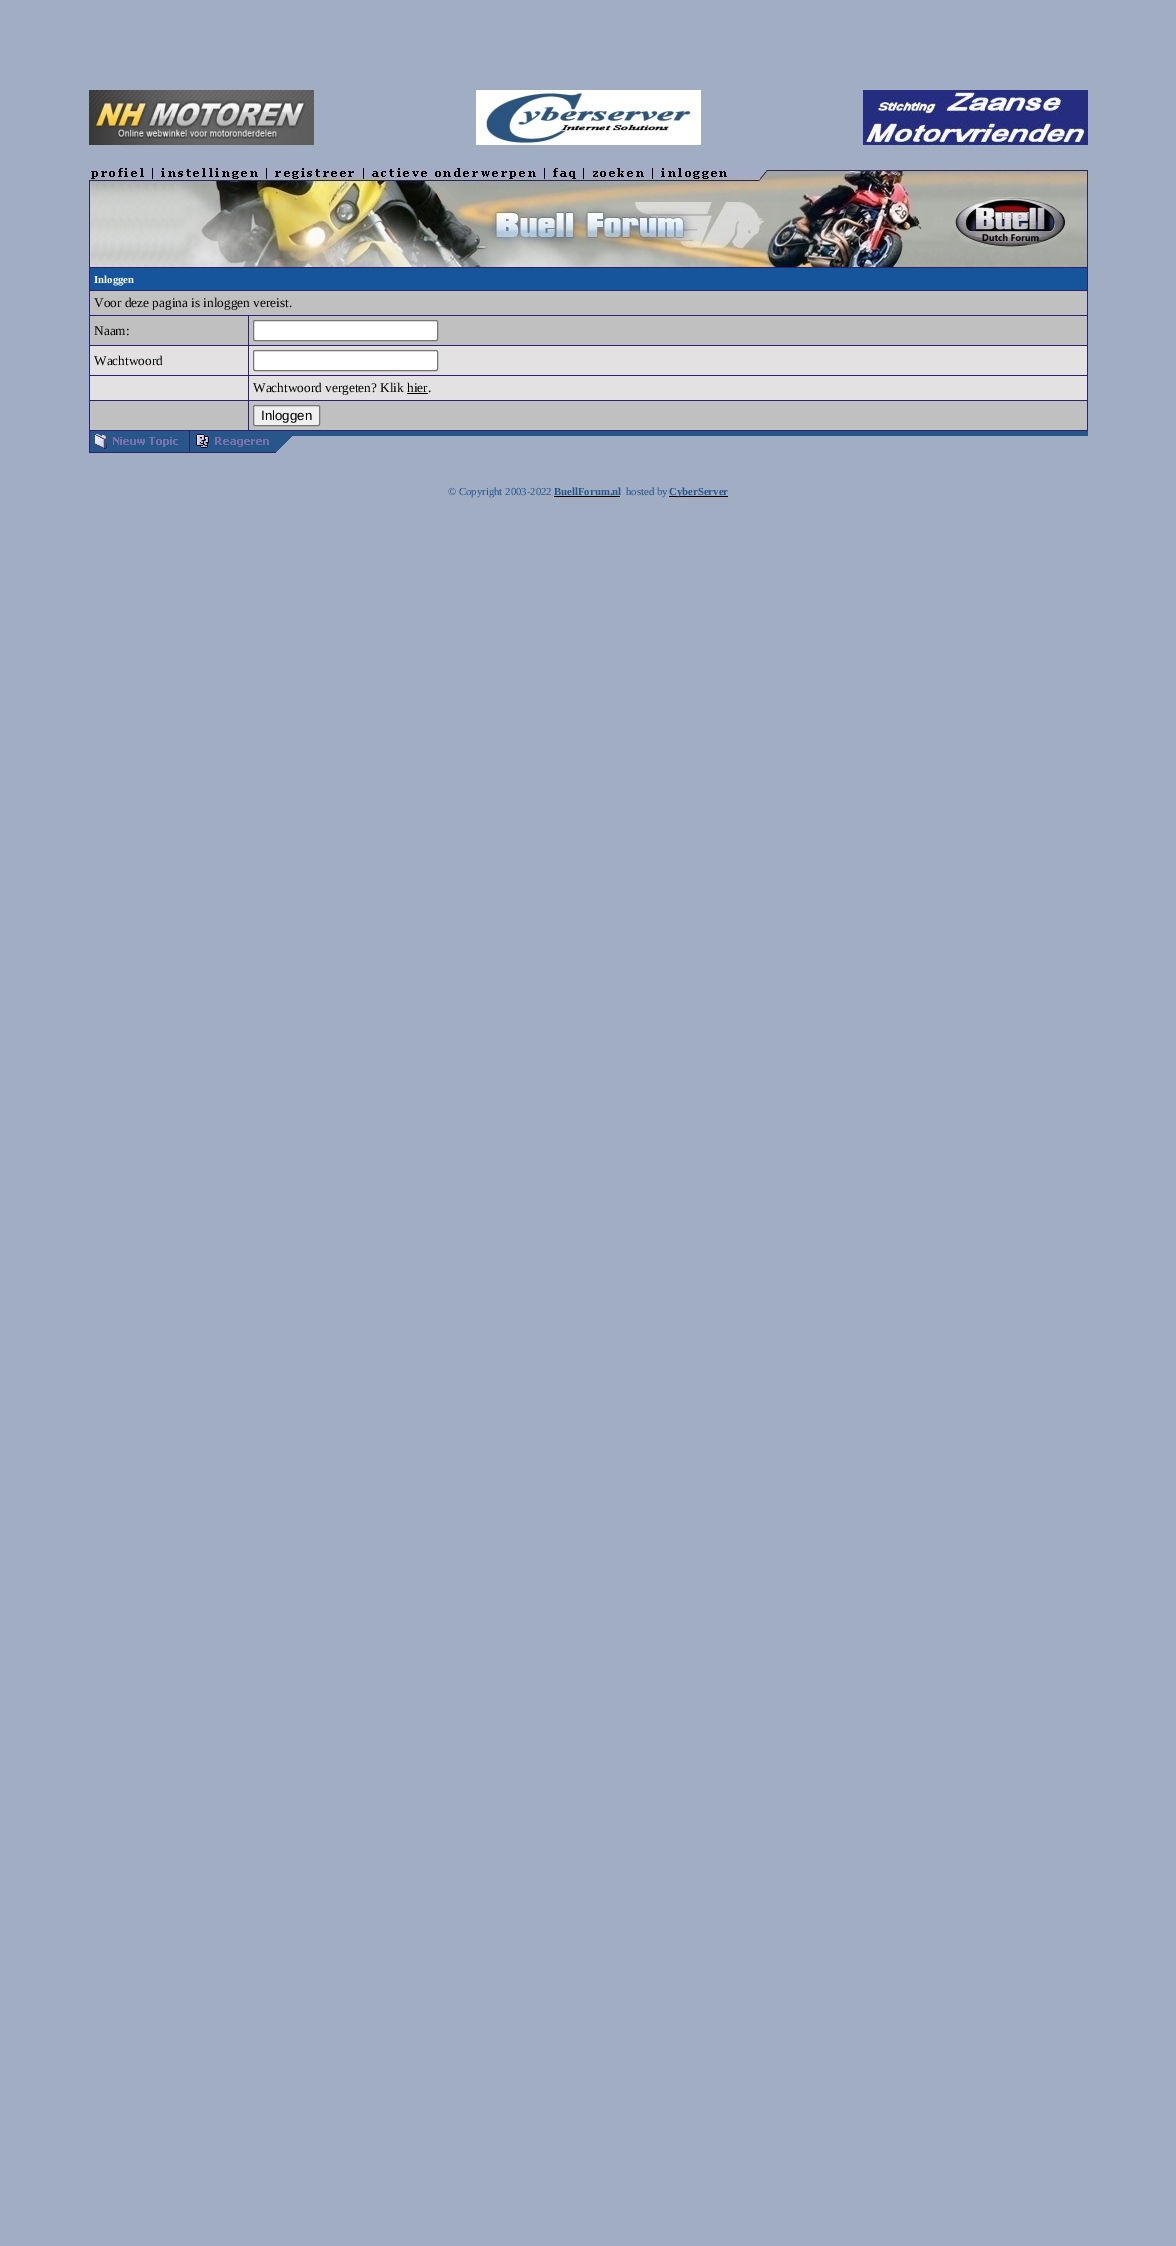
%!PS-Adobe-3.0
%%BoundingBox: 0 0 1176 2246
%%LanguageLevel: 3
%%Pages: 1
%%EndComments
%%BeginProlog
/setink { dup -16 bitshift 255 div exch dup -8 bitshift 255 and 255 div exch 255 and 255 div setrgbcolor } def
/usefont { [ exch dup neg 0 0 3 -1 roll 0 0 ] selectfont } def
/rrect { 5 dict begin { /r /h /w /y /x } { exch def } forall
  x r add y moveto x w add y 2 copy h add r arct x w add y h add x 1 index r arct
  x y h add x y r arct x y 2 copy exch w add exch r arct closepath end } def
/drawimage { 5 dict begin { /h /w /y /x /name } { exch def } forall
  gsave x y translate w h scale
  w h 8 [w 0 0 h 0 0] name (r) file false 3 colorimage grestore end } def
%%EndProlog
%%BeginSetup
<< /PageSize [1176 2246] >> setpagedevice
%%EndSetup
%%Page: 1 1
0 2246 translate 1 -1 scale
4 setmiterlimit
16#A0ADC3 setink
0 0 1176 2246 rectfill
(img1.raw) 89 90 225 55 drawimage
(img2.raw) 476 90 225 55 drawimage
(img3.raw) 863 90 225 55 drawimage
(img4.raw) 89 167 999 100 drawimage
16#2F206F setink
89 267 999 164 rectfill
16#16559B setink
90 268 997 22 rectfill
/LiberationSerif-Bold 10.75 usefont
16#FFFFFF setink
94 283 moveto (Inloggen) show
16#C0C0C0 setink
90 291 997 24 rectfill
/LiberationSerif-Regular 13.3 usefont
16#000000 setink
94 307 moveto (Voor deze pagina is inloggen vereist.) show
16#C0C0C0 setink
90 316 158 29 rectfill
16#000000 setink
94 335 moveto (Naam:) show
16#C0C0C0 setink
249 316 838 29 rectfill
16#FFFFFF setink
253.5 320.5 184 20 1.5 rrect gsave fill grestore
16#767676 setink
stroke
16#E3E1E1 setink
90 346 158 29 rectfill
16#000000 setink
94 365 moveto (Wachtwoord) show
16#E3E1E1 setink
249 346 838 29 rectfill
16#FFFFFF setink
253.5 350.5 184 20 1.5 rrect gsave fill grestore
16#767676 setink
stroke
16#E3E1E1 setink
90 376 158 24 rectfill
249 376 838 24 rectfill
16#000000 setink
253 392 moveto (Wachtwoord vergeten? Klik hier.) show
[
    [407 393 21 1 16#000000]
    [90 401 158 29 16#C0C0C0]
    [249 401 838 29 16#C0C0C0]
] { aload pop setink rectfill } forall
16#EFEFEF setink
253.5 405.5 66 20 1.5 rrect gsave fill grestore
16#767676 setink
stroke
/LiberationSans-Regular 13.3 usefont
16#000000 setink
261 420 moveto (Inloggen) show
(img5.raw) 89 431 101 22 drawimage
(img6.raw) 190 431 103 22 drawimage
16#27568B setink
293 431 795 5 rectfill
/LiberationSerif-Regular 10.75 usefont
448 495 moveto (© Copyright 2003-2022) show
/LiberationSerif-Bold 10.75 usefont
554 495 moveto (BuellForum.nl) show
16#000000 setink
554 496 66 1 rectfill
/LiberationSerif-Regular 10.75 usefont
16#27568B setink
626 495 moveto (hosted by) show
16#000000 setink
669 496 59 1 rectfill
/LiberationSerif-Bold 10.75 usefont
16#27568B setink
669 495 moveto (CyberServer) show
showpage
%%EOF
